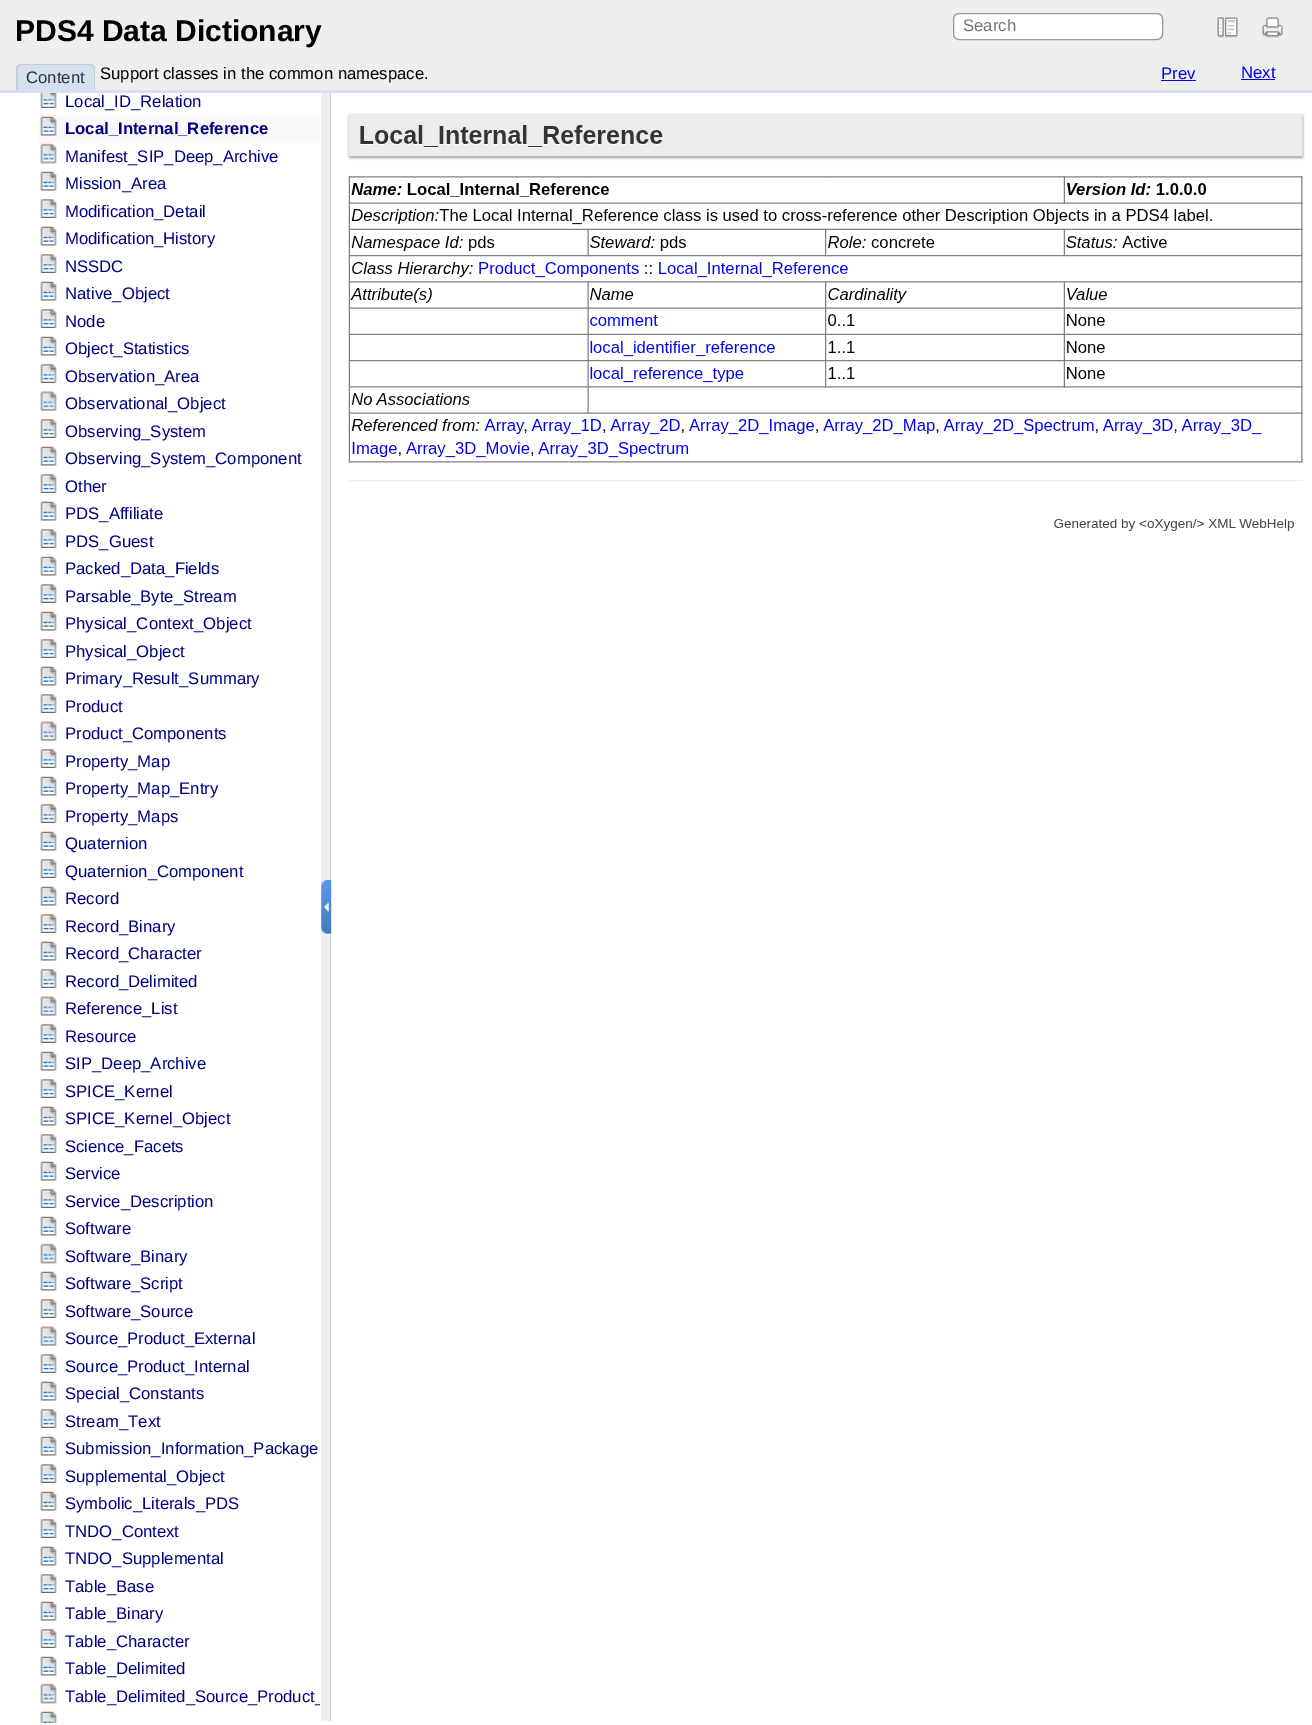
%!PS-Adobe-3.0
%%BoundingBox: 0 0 1312 1725
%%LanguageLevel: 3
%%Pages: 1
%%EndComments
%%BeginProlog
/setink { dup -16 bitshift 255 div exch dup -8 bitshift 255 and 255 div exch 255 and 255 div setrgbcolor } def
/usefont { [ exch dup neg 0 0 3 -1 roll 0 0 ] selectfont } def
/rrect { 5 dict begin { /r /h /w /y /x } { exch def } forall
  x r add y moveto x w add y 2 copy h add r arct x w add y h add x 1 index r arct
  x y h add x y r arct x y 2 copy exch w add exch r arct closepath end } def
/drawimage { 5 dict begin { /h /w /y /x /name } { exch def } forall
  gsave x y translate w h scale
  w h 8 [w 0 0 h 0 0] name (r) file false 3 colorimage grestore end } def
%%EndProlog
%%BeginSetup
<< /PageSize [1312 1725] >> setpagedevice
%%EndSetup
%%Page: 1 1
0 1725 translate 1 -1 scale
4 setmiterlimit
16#FFFFFF setink
0 0 1312 1725 rectfill
16#EEEEEE setink
0 0 1312 90 rectfill
/LiberationSans-Bold 30 usefont
16#000000 setink
15 41 moveto (PDS4 Data Dictionary) show
16#FFFFFF setink
953.5 13.5 209 26 5.5 rrect gsave fill grestore
16#999999 setink
stroke
/LiberationSans-Regular 16.7 usefont
16#757575 setink
963 31 moveto (Search) show
(img1.raw) 1217 17 21 21 drawimage
(img2.raw) 1262 17 21 21 drawimage
16#D3E1F1 setink
21 64 moveto 90 64 lineto 93 64 95 66 95 69 curveto 95 90 lineto 16 90 lineto 16 69 lineto 16 66 18 64 21 64 curveto closepath fill
16#CCCCCC setink
21 64 moveto 90 64 lineto 93 64 95 66 95 69 curveto 95 90 lineto 16 90 lineto 16 69 lineto 16 66 18 64 21 64 curveto closepath 21 65 moveto 90 65 lineto 92 65 94 67 94 69 curveto 94 90 lineto 18 90 lineto 18 69 lineto 18 67 19 65 21 65 curveto closepath eofill
16#333333 setink
26 83 moveto (Content) show
16#000000 setink
100 79 moveto (Support classes in the common namespace.) show
16#0000EE setink
1161 79 moveto (Prev) show
1161 80 35 1 rectfill
1241 78 moveto (Next) show
1241 79 34 1 rectfill
16#D3E1F1 setink
0 90 1312 3 rectfill
(img3.raw) 40 93 17 15 drawimage
16#000080 setink
65 107 moveto (Local_ID_Relation) show
16#F9F9F9 setink
39 115 281 28 rectfill
(img4.raw) 40 116 17 20 drawimage
/LiberationSans-Bold 16.7 usefont
16#000080 setink
65 134 moveto (Local_Internal_Reference) show
(img5.raw) 40 143 17 21 drawimage
/LiberationSans-Regular 16.7 usefont
65 162 moveto (Manifest_SIP_Deep_Archive) show
(img6.raw) 40 171 17 20 drawimage
65 189 moveto (Mission_Area) show
(img7.raw) 40 199 17 19 drawimage
65 217 moveto (Modification_Detail) show
(img6.raw) 40 226 17 20 drawimage
65 244 moveto (Modification_History) show
(img7.raw) 40 254 17 19 drawimage
65 272 moveto (NSSDC) show
(img6.raw) 40 281 17 20 drawimage
65 299 moveto (Native_Object) show
(img7.raw) 40 309 17 19 drawimage
65 327 moveto (Node) show
(img6.raw) 40 336 17 20 drawimage
65 354 moveto (Object_Statistics) show
(img7.raw) 40 364 17 19 drawimage
65 382 moveto (Observation_Area) show
(img8.raw) 40 391 17 20 drawimage
65 409 moveto (Observational_Object) show
(img7.raw) 40 419 17 19 drawimage
65 437 moveto (Observing_System) show
(img6.raw) 40 446 17 20 drawimage
65 464 moveto (Observing_System_Component) show
(img7.raw) 40 474 17 19 drawimage
65 492 moveto (Other) show
(img6.raw) 40 501 17 20 drawimage
65 519 moveto (PDS_Affiliate) show
(img7.raw) 40 529 17 19 drawimage
65 547 moveto (PDS_Guest) show
(img9.raw) 40 556 17 20 drawimage
65 574 moveto (Packed_Data_Fields) show
(img7.raw) 40 584 17 19 drawimage
65 602 moveto (Parsable_Byte_Stream) show
(img6.raw) 40 611 17 20 drawimage
65 629 moveto (Physical_Context_Object) show
(img7.raw) 40 639 17 19 drawimage
65 657 moveto (Physical_Object) show
(img6.raw) 40 666 17 20 drawimage
65 684 moveto (Primary_Result_Summary) show
(img7.raw) 40 694 17 19 drawimage
65 712 moveto (Product) show
(img8.raw) 40 721 17 20 drawimage
65 739 moveto (Product_Components) show
(img7.raw) 40 749 17 19 drawimage
65 767 moveto (Property_Map) show
(img6.raw) 40 776 17 20 drawimage
65 794 moveto (Property_Map_Entry) show
(img7.raw) 40 804 17 19 drawimage
65 822 moveto (Property_Maps) show
(img6.raw) 40 831 17 20 drawimage
65 849 moveto (Quaternion) show
(img7.raw) 40 859 17 19 drawimage
65 877 moveto (Quaternion_Component) show
(img6.raw) 40 886 17 20 drawimage
65 904 moveto (Record) show
(img7.raw) 40 914 17 19 drawimage
65 932 moveto (Record_Binary) show
(img6.raw) 40 941 17 20 drawimage
65 959 moveto (Record_Character) show
(img7.raw) 40 969 17 19 drawimage
65 987 moveto (Record_Delimited) show
(img8.raw) 40 996 17 20 drawimage
65 1014 moveto (Reference_List) show
(img7.raw) 40 1024 17 19 drawimage
65 1042 moveto (Resource) show
(img6.raw) 40 1051 17 20 drawimage
65 1069 moveto (SIP_Deep_Archive) show
(img7.raw) 40 1079 17 19 drawimage
65 1097 moveto (SPICE_Kernel) show
(img6.raw) 40 1106 17 20 drawimage
65 1124 moveto (SPICE_Kernel_Object) show
(img7.raw) 40 1134 17 19 drawimage
65 1152 moveto (Science_Facets) show
(img6.raw) 40 1161 17 20 drawimage
65 1179 moveto (Service) show
(img7.raw) 40 1189 17 19 drawimage
65 1207 moveto (Service_Description) show
(img6.raw) 40 1216 17 20 drawimage
65 1234 moveto (Software) show
(img5.raw) 40 1243 17 21 drawimage
65 1262 moveto (Software_Binary) show
(img6.raw) 40 1271 17 20 drawimage
65 1289 moveto (Software_Script) show
(img7.raw) 40 1299 17 19 drawimage
65 1317 moveto (Software_Source) show
(img8.raw) 40 1326 17 20 drawimage
65 1344 moveto (Source_Product_External) show
(img7.raw) 40 1354 17 19 drawimage
65 1372 moveto (Source_Product_Internal) show
(img6.raw) 40 1381 17 20 drawimage
65 1399 moveto (Special_Constants) show
(img7.raw) 40 1409 17 19 drawimage
65 1427 moveto (Stream_Text) show
(img6.raw) 40 1436 17 20 drawimage
65 1454 moveto (Submission_Information_Package) show
(img7.raw) 40 1464 17 19 drawimage
65 1482 moveto (Supplemental_Object) show
(img6.raw) 40 1491 17 20 drawimage
65 1509 moveto (Symbolic_Literals_PDS) show
(img7.raw) 40 1519 17 19 drawimage
65 1537 moveto (TNDO_Context) show
(img6.raw) 40 1546 17 20 drawimage
65 1564 moveto (TNDO_Supplemental) show
(img7.raw) 40 1574 17 19 drawimage
65 1592 moveto (Table_Base) show
(img6.raw) 40 1601 17 20 drawimage
65 1619 moveto (Table_Binary) show
(img7.raw) 40 1629 17 19 drawimage
65 1647 moveto (Table_Character) show
(img6.raw) 40 1656 17 20 drawimage
65 1674 moveto (Table_Delimited) show
(img5.raw) 40 1683 17 21 drawimage
gsave
1 94 319 1629 rectclip
65 1702 moveto (Table_Delimited_Source_Product_) show
grestore
(img10.raw) 40 1711 17 12 drawimage
16#EEEEEE setink
321 93 9 1628 rectfill
16#CCCCCC setink
330 93 1 1628 rectfill
(img11.raw) 321 880 11 55 drawimage
(img12.raw) 347 113 958 418 drawimage
showpage
%%EOF
